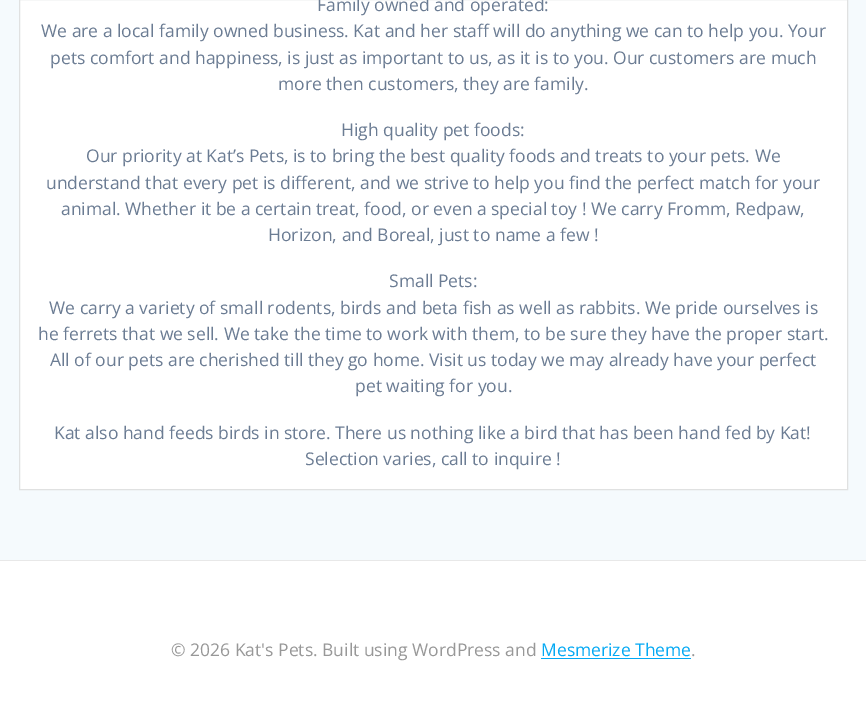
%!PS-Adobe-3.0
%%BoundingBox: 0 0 866 716
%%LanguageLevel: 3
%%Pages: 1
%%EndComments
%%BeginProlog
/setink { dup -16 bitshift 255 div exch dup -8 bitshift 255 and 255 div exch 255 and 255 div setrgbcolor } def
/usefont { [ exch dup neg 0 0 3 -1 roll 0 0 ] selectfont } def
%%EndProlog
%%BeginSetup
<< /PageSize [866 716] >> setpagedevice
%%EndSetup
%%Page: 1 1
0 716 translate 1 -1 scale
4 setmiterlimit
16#FFFFFF setink
0 0 866 716 rectfill
16#F5FAFD setink
0 0 866 560 rectfill
16#FFFFFF setink
19.5 -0.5 moveto 847.5 -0.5 lineto 847.5 489.5 lineto 19.5 489.5 lineto closepath gsave fill grestore
16#E0E1E1 setink
stroke
/OpenSans-Regular 17.5 usefont
16#6B7C93 setink
[
    [(Family owned and operated:) 317 11]
    [(We are a local family owned business. Kat and her staff will do anything we can to help you. Your) 41 37]
    [(pets comfort and happiness, is just as important to us, as it is to you. Our customers are much) 50 64]
    [(more then customers, they are family.) 278 90]
    [(High quality pet foods:) 341 136]
    [(Our priority at Kat’s Pets, is to bring the best quality foods and treats to your pets. We) 86 162]
    [(understand that every pet is different, and we strive to help you find the perfect match for your) 46 189]
    [(animal. Whether it be a certain treat, food, or even a special toy ! We carry Fromm, Redpaw,) 61 215]
    [(Horizon, and Boreal, just to name a few !) 268 241]
    [(Small Pets:) 389 287]
    [(We carry a variety of small rodents, birds and beta fish as well as rabbits. We pride ourselves is) 49 314]
    [(he ferrets that we sell. We take the time to work with them, to be sure they have the proper start.) 38 340]
    [(All of our pets are cherished till they go home. Visit us today we may already have your perfect) 50 366]
    [(pet waiting for you.) 355 392]
    [(Kat also hand feeds birds in store. There us nothing like a bird that has been hand fed by Kat!) 54 439]
    [(Selection varies, call to inquire !) 305 465]
] { aload pop moveto show } forall
16#E8E8E8 setink
0 560 866 1 rectfill
16#989898 setink
171 656 moveto (© 2026 Kat's Pets. Built using WordPress and) show
16#03A9F4 setink
541 656 moveto (Mesmerize Theme) show
541 658 150 1 rectfill
16#989898 setink
691 656 moveto (.) show
showpage
%%EOF
